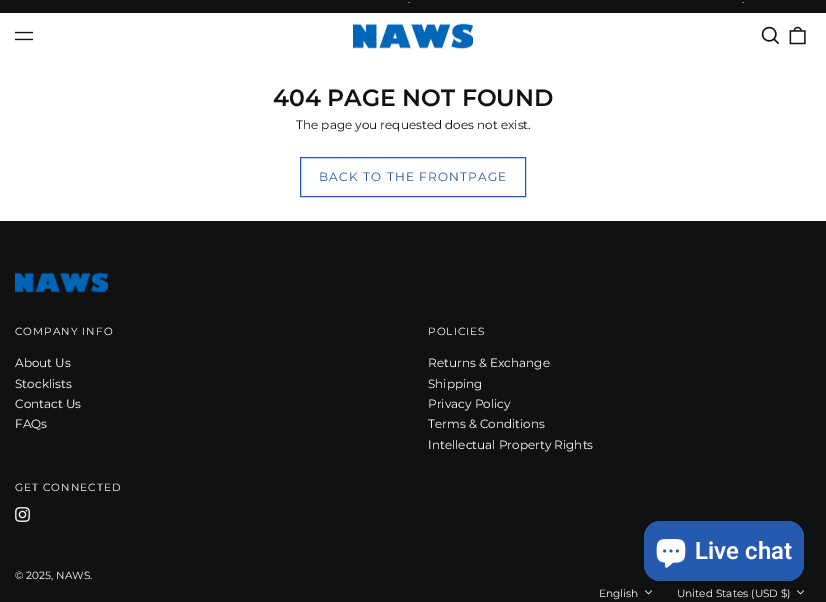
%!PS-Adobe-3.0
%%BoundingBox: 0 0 826 602
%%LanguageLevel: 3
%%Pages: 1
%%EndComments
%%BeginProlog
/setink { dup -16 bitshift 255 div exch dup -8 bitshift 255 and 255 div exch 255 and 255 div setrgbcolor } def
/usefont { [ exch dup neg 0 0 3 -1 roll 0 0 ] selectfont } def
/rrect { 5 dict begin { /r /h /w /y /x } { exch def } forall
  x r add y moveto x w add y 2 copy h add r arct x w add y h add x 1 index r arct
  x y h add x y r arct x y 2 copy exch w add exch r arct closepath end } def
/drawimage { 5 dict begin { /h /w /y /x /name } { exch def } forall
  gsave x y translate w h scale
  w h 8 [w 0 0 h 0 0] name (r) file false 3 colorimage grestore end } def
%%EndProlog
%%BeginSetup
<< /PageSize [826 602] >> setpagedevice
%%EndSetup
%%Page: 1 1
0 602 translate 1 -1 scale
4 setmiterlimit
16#FFFFFF setink
0 0 826 602 rectfill
16#101112 setink
0 0 826 13 rectfill
/Montserrat-Regular 10.5 usefont
16#FFFFFF setink
408 3 moveto 1 0 (.) ashow
742 3 moveto 1 0 (.) ashow
(img1.raw) 15 31 18 10 drawimage
(img2.raw) 353 23 120 27 drawimage
(img3.raw) 761 26 18 19 drawimage
(img4.raw) 789 26 17 19 drawimage
/Montserrat-SemiBold 23.5 usefont
16#101112 setink
273 106 moveto (404 PAGE NOT FOUND) show
/Montserrat-Regular 12 usefont
296 129 moveto (The page you requested does not exist.) show
16#265AAE setink
300.5 157.5 225 39 rectstroke
319 181 moveto 1.2 0 (BACK TO THE FRONTPAGE) ashow
16#101112 setink
0 221 826 381 rectfill
(img5.raw) 15 272 93 21 drawimage
/Montserrat-Regular 10.5 usefont
16#FFFFFF setink
15 335 moveto 1 0 (COMPANY INFO) ashow
/Montserrat-Regular 12 usefont
[
    [(About Us) 15 367]
    [(Stocklists) 15 388]
    [(Contact Us) 15 408]
    [(FAQs) 15 428]
] { aload pop moveto show } forall
/Montserrat-Regular 10.5 usefont
428 335 moveto 1 0 (POLICIES) ashow
/Montserrat-Regular 12 usefont
[
    [(Returns & Exchange) 428 367]
    [(Shipping) 428 388]
    [(Privacy Policy) 428 408]
    [(Terms & Conditions) 428 428]
    [(Intellectual Property Rights) 428 449]
] { aload pop moveto show } forall
/Montserrat-Regular 10.5 usefont
15 491 moveto 1 0 (GET CONNECTED) ashow
(img6.raw) 15 507 15 15 drawimage
15 579 moveto (© 2025, NAWS.) show
599 597 moveto (English) show
(img7.raw) 645 590 7 5 drawimage
677 597 moveto (United States \(USD $\)) show
(img7.raw) 797 590 7 5 drawimage
16#265AAE setink
644 521 160 60 16 rrect fill
(img8.raw) 656 539 30 29 drawimage
/Roboto-SemiBold 24 usefont
16#FFFFFF setink
695 559 moveto (Live chat) show
showpage
%%EOF
